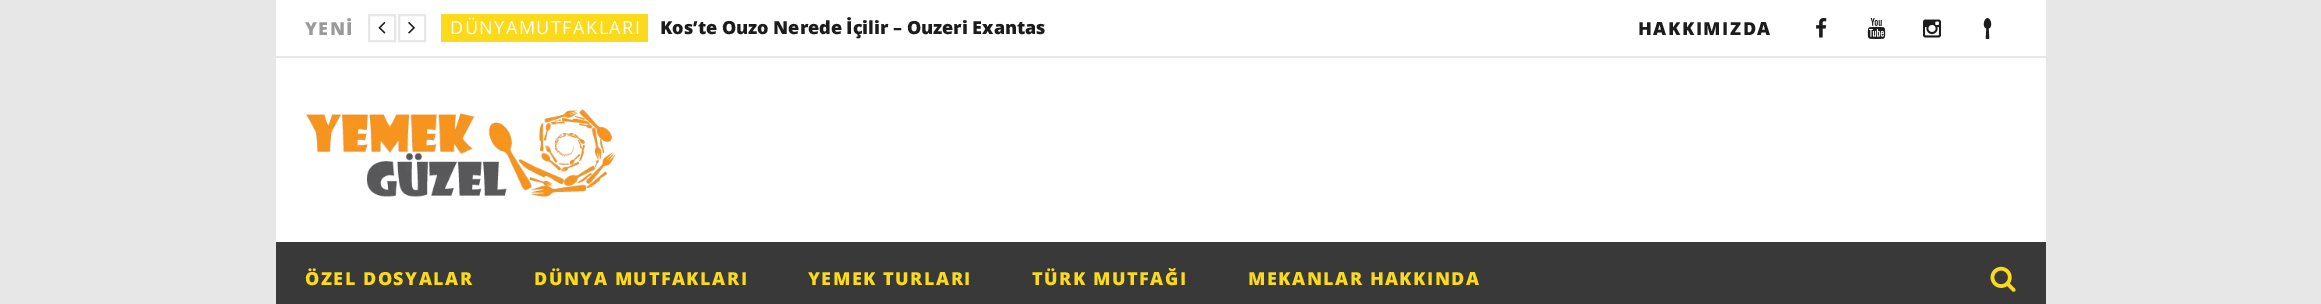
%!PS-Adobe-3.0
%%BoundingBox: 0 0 2321 304
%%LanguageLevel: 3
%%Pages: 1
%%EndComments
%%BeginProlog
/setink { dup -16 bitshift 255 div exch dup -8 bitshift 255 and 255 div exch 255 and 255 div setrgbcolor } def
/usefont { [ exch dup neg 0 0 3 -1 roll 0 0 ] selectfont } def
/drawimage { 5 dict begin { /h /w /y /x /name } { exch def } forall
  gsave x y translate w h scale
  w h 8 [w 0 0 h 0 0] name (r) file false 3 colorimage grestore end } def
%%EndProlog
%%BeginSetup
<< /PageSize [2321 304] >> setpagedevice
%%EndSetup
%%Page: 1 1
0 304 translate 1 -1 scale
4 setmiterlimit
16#E7E7E7 setink
0 0 2321 304 rectfill
16#FFFFFF setink
276 0 1770 242 rectfill
16#E7E7E7 setink
276 56 1770 2 rectfill
/OpenSans-ExtraBold 18 usefont
16#999999 setink
305 35 moveto 1.5 0 (YENİ) ashow
16#E7E7E7 setink
2 setlinewidth
369 15 26 26 rectstroke
(img1.raw) 378 22 8 12 drawimage
399 15 26 26 rectstroke
(img2.raw) 408 22 7 12 drawimage
16#FADA1A setink
441 14 207 28 rectfill
/OpenSans-Regular 18 usefont
16#FFFFFF setink
450 34 moveto 1.5 0 (DÜNYAMUTFAKLARI) ashow
/OpenSans-ExtraBold 18 usefont
16#1C1C1C setink
660 34 moveto (Kos’te Ouzo Nerede İçilir – Ouzeri Exantas) show
1638 35 moveto 1.5 0 (HAKKIMIZDA) ashow
(img3.raw) 1816 18 11 20 drawimage
(img4.raw) 1867 18 19 21 drawimage
(img5.raw) 1923 19 18 19 drawimage
(img6.raw) 1983 18 9 21 drawimage
(img7.raw) 306 109 309 88 drawimage
16#393939 setink
276 242 1770 62 rectfill
16#FADA1A setink
305 285 moveto 1.5 0 (ÖZEL DOSYALAR) ashow
534 285 moveto 1.5 0 (DÜNYA MUTFAKLARI) ashow
808 285 moveto 1.5 0 (YEMEK TURLARI) ashow
1032 285 moveto 1.5 0 (TÜRK MUTFAĞI) ashow
1248 285 moveto 1.5 0 (MEKANLAR HAKKINDA) ashow
(img8.raw) 1990 266 26 26 drawimage
showpage
%%EOF
